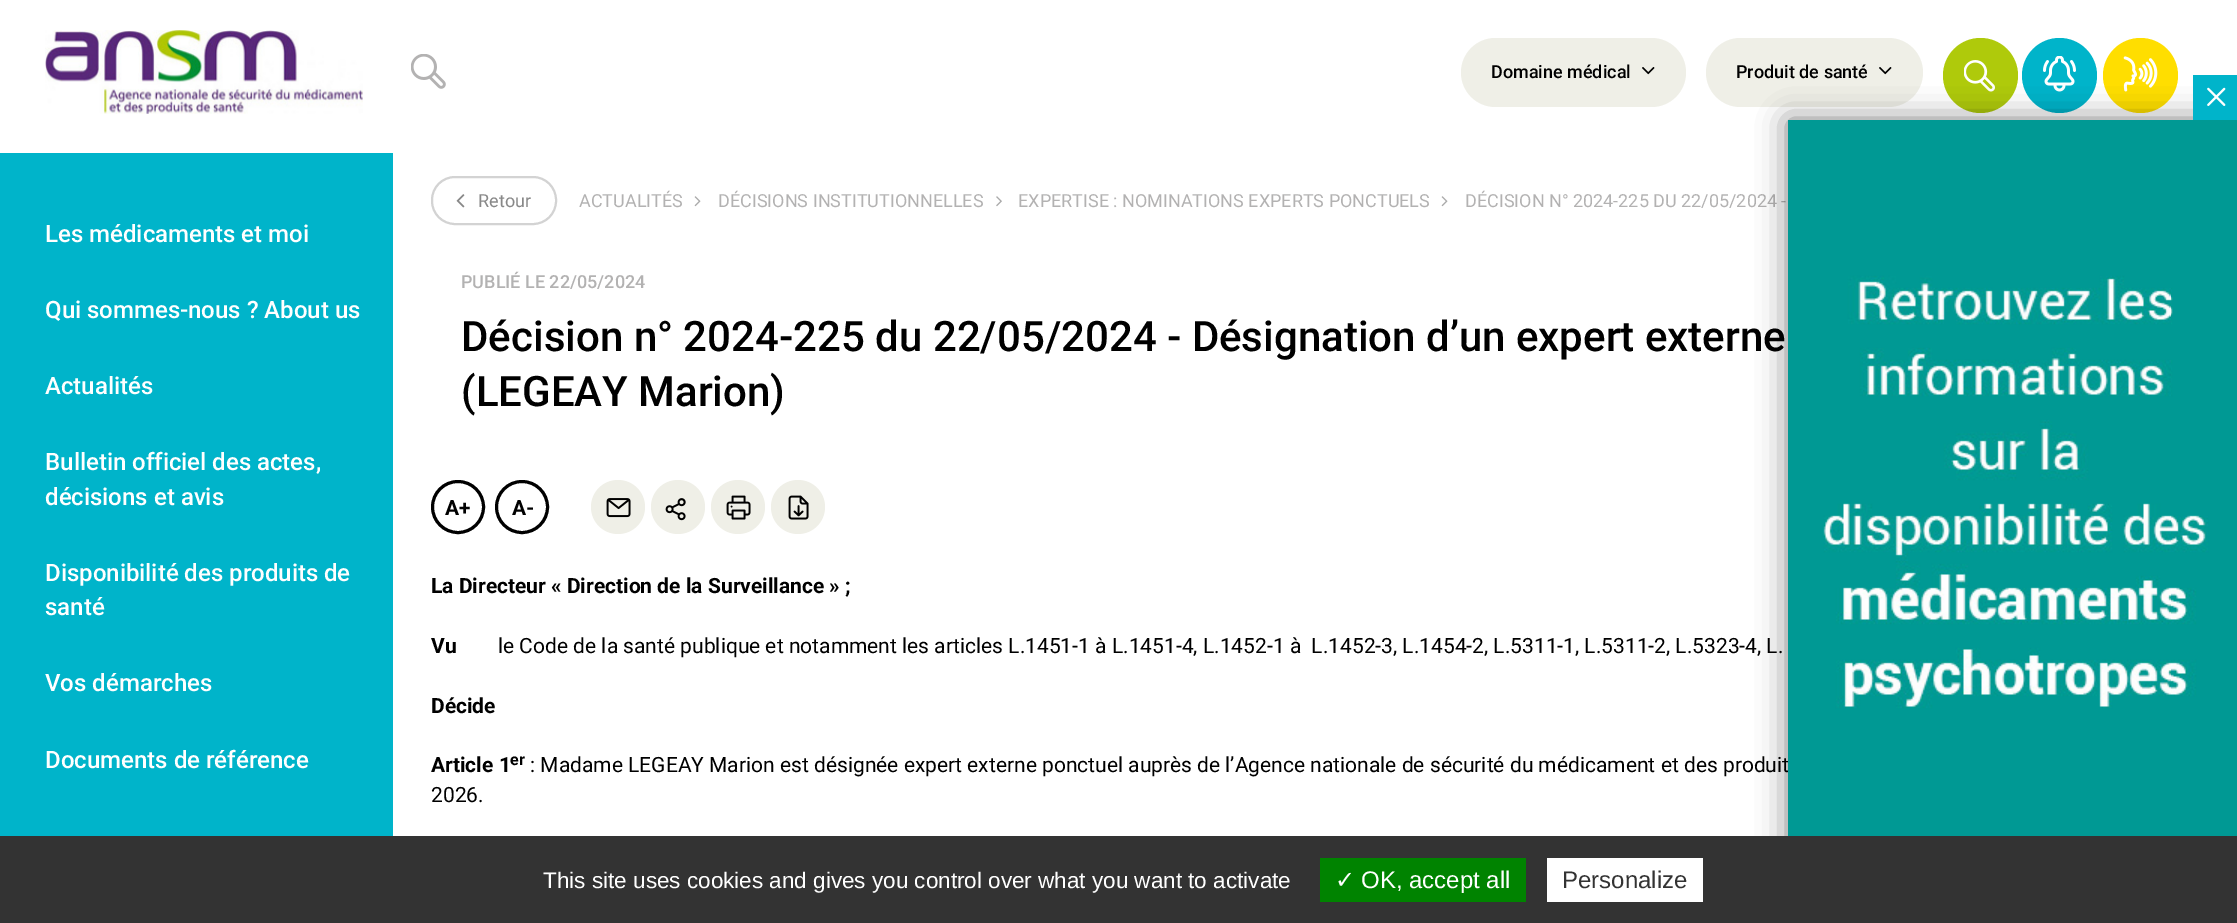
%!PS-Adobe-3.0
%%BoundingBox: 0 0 2237 923
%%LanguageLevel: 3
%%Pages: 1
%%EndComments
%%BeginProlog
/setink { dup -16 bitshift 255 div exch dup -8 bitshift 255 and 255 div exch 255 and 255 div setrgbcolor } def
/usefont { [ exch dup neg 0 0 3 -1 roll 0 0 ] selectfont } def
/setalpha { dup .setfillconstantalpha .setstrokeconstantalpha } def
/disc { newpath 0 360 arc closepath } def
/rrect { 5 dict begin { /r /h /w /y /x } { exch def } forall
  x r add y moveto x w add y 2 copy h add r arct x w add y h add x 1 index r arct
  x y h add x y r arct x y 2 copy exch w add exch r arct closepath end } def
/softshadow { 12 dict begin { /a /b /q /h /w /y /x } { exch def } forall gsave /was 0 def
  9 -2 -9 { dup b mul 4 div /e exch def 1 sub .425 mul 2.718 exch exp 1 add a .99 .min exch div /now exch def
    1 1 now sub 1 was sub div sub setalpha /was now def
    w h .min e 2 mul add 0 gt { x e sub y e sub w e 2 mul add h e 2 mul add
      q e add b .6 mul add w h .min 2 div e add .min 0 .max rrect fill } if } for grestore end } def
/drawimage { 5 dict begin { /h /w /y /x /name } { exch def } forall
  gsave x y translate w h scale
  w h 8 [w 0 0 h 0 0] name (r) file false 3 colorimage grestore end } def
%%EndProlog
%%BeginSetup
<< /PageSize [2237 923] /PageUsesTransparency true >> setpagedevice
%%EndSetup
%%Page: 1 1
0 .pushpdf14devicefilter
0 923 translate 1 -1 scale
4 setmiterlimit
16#FFFFFF setink
0 0 2237 923 rectfill
(img1.raw) 45 30 318 84 drawimage
(img2.raw) 411 54 35 35 drawimage
16#EFEFE7 setink
1461 38 225 69 34.5 rrect fill
/Roboto-Medium 18 usefont
16#000000 setink
1491 78 moveto (Domaine médical) show
(img3.raw) 1642 67 13 8 drawimage
16#EFEFE7 setink
1706 38 217 69 34.5 rrect fill
16#000000 setink
1736 78 moveto (Produit de santé) show
(img3.raw) 1879 67 13 8 drawimage
16#AFCA0B setink
1980.5 75.5 37.5 disc fill
(img4.raw) 1964 60 31 32 drawimage
16#00B4CA setink
2059.5 75.5 37.5 disc fill
(img5.raw) 2043 56 33 36 drawimage
16#FFDE00 setink
2140.5 75.5 37.5 disc fill
(img6.raw) 2123 56 35 36 drawimage
16#00B4CA setink
0 153 393 683 rectfill
/Roboto-Medium 24 usefont
16#FFFFFF setink
[
    [(Les médicaments et moi) 45 242]
    [(Qui sommes-nous ? About us) 45 318]
    [(Actualités) 45 394]
    [(Bulletin officiel des actes,) 45 470]
    [(décisions et avis) 45 505]
    [(Disponibilité des produits de) 45 581]
    [(santé) 45 615]
    [(Vos démarches) 45 691]
    [(Documents de référence) 45 768]
] { aload pop moveto show } forall
16#D3D3D3 setink
2 setlinewidth
432 177 124 47 23 rrect stroke
(img7.raw) 456 194 9 14 drawimage
/Roboto-Regular 18 usefont
16#888888 setink
478 207 moveto (Retour) show
16#B3B2B2 setink
579 207 moveto (ACTUALITÉS) show
(img8.raw) 694 196 7 11 drawimage
718 207 moveto (DÉCISIONS INSTITUTIONNELLES) show
(img9.raw) 996 196 6 11 drawimage
1018 207 moveto (EXPERTISE : NOMINATIONS EXPERTS PONCTUELS) show
(img8.raw) 1441 196 7 11 drawimage
1465 207 moveto (DÉCISION N° 2024-225 DU 22/05/2024 -) show
/Roboto-Medium 18 usefont
461 288 moveto (PUBLIÉ LE 22/05/2024) show
/Roboto-Medium 42 usefont
16#000000 setink
461 351 moveto (Décision n° 2024-225 du 22/05/2024 - Désignation d’un expert externe) show
461 406 moveto (\(LEGEAY Marion\)) show
3 setlinewidth
458 507 25.5 disc stroke
/Roboto-Bold 21 usefont
445 515 moveto (A+) show
522 507 25.5 disc stroke
512 515 moveto (A-) show
16#EFEFE7 setink
618 507 27 disc fill
(img10.raw) 606 498 25 20 drawimage
678 507 27 disc fill
(img11.raw) 665 498 21 23 drawimage
738 507 27 disc fill
(img12.raw) 726 495 25 25 drawimage
798 507 27 disc fill
(img13.raw) 788 495 21 25 drawimage
16#000000 setink
431 593 moveto (La Directeur « Direction de la Surveillance » ;) show
431 653 moveto (Vu) show
/Roboto-Regular 21 usefont
498 653 moveto (le Code de la santé publique et notamment les articles L.1451-1 à L.1451-4, L.1452-1 à  L.1452-3, L.1454-2, L.5311-1, L.5311-2, L.5323-4, L.) show
/Roboto-Bold 21 usefont
431 713 moveto (Décide) show
431 772 moveto (Article 1) show
/Roboto-Bold 16 usefont
510 765 moveto (er) show
/Roboto-Regular 21 usefont
530 772 moveto (: Madame LEGEAY Marion est désignée expert externe ponctuel auprès de l’Agence nationale de sécurité du médicament et des produit) show
431 802 moveto (2026.) show
1788 120 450 800 0 15 0.5 softshadow
(img14.raw) 1788 120 449 716 drawimage
16#00B4CA setink
2193 75 44 45 rectfill
(img15.raw) 2207 87 19 19 drawimage
16#333333 setink
0 836 2237 87 rectfill
/LiberationSans-Regular 22.5 usefont
16#FFFFFF setink
543 888 moveto (This site uses cookies and gives you control over what you want to activate) show
16#008300 setink
1320 858 206 44 rectfill
/DejaVuSans-Regular 24 usefont
16#FFFFFF setink
1335 888 moveto (✓) show
/LiberationSans-Regular 24 usefont
1361 888 moveto (OK, accept all) show
1547 858 156 44 rectfill
16#333333 setink
1562 888 moveto (Personalize) show
.poppdf14devicefilter showpage
%%EOF
